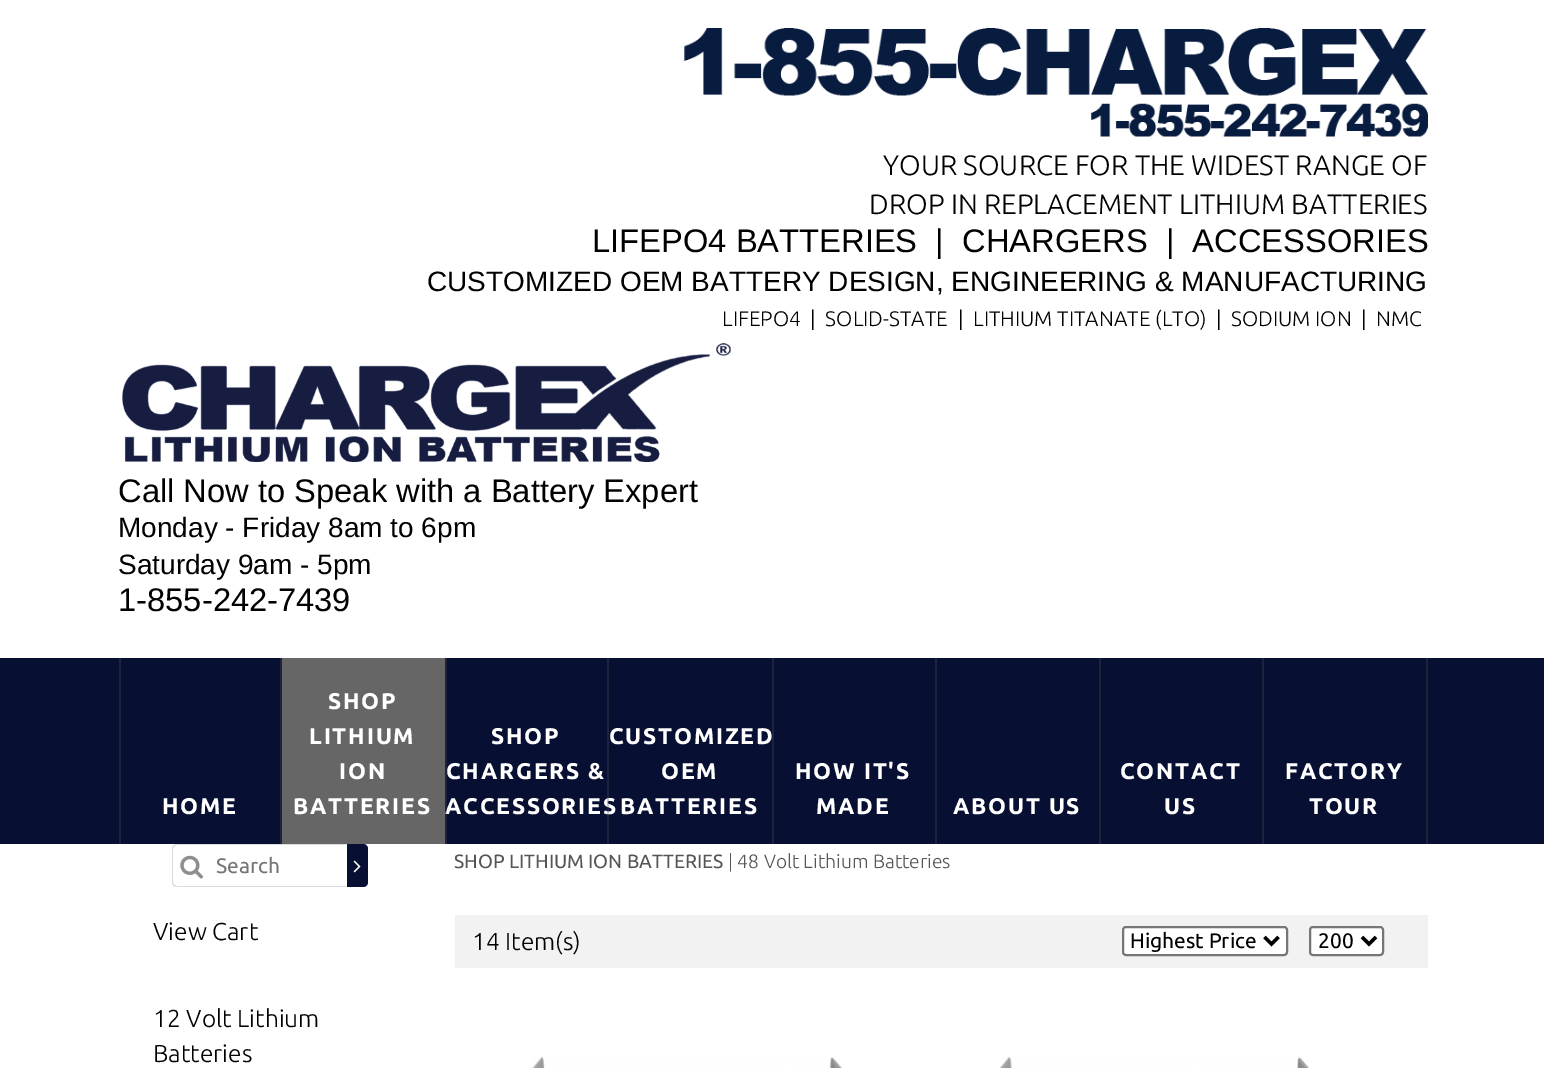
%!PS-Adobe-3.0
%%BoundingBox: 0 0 1544 1068
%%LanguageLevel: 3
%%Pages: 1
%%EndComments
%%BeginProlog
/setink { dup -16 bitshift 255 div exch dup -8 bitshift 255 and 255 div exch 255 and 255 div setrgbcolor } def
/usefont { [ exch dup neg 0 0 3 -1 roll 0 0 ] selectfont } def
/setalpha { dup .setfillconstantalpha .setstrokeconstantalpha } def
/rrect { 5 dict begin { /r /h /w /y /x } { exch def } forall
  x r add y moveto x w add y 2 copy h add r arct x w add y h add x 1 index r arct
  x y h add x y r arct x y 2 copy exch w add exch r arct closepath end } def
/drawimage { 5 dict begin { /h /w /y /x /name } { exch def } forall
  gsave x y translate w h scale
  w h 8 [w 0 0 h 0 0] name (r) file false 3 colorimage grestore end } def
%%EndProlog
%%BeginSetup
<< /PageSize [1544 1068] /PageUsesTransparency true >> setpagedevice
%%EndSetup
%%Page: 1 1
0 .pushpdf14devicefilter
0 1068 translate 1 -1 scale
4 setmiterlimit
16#FFFFFF setink
0 0 1544 1068 rectfill
(img1.raw) 684 28 744 109 drawimage
/Ubuntu-Light 28 usefont
16#000000 setink
883 175 moveto (YOUR SOURCE FOR THE WIDEST RANGE OF) show
869 214 moveto (DROP IN REPLACEMENT LITHIUM BATTERIES) show
/LiberationSans-Regular 32.7 usefont
592 252 moveto (LIFEPO4 BATTERIES  |  CHARGERS  |  ACCESSORIES) show
/LiberationSans-Regular 28 usefont
427 291 moveto (CUSTOMIZED OEM BATTERY DESIGN, ENGINEERING & MANUFACTURING) show
/Ubuntu-Light 21 usefont
[
    [(LIFEPO4  |  SOLID-STATE  |) 722 326]
    [(LITHIUM TITANATE \(LTO\)  |) 973 326]
    [(SODIUM ION  |  NMC) 1231 326]
] { aload pop moveto show } forall
(img2.raw) 122 343 609 119 drawimage
/LiberationSans-Regular 32.7 usefont
118 502 moveto (Call Now to Speak with a Battery Expert) show
/LiberationSans-Regular 28 usefont
118 537 moveto (Monday - Friday 8am to 6pm) show
118 574 moveto (Saturday 9am - 5pm) show
/LiberationSans-Regular 32.7 usefont
118 611 moveto (1-855-242-7439) show
16#070F33 setink
0 658 1544 186 rectfill
16#1D233C setink
119 658 2 186 rectfill
/Ubuntu-Bold 22.75 usefont
16#FFFFFF setink
162 814 moveto 1.75 0 (HOME) ashow
16#1D233C setink
280 658 2 186 rectfill
16#666666 setink
282 658 163 186 rectfill
16#FFFFFF setink
328 709 moveto 1.75 0 (SHOP) ashow
309 744 moveto 1.75 0 (LITHIUM) ashow
339 779 moveto 1.75 0 (ION) ashow
293 814 moveto 1.75 0 (BATTERIES) ashow
445 814 moveto 1.75 0 (ACCESSORIES) ashow
0.3 setalpha
16#505152 setink
445 658 2 186 rectfill
607 658 2 186 rectfill
1 setalpha
16#FFFFFF setink
491 744 moveto 1.75 0 (SHOP) ashow
446 779 moveto 1.75 0 (CHARGERS &) ashow
609 744 moveto 1.75 0 (CUSTOMIZED) ashow
0.3 setalpha
16#505152 setink
772 658 2 186 rectfill
1 setalpha
16#FFFFFF setink
661 779 moveto 1.75 0 (OEM) ashow
620 814 moveto 1.75 0 (BATTERIES) ashow
795 779 moveto 1.75 0 (HOW IT'S) ashow
816 814 moveto 1.75 0 (MADE) ashow
16#1D233C setink
935 658 2 186 rectfill
16#FFFFFF setink
953 814 moveto 1.75 0 (ABOUT US) ashow
16#1D233C setink
1099 658 2 186 rectfill
16#FFFFFF setink
1120 779 moveto 1.75 0 (CONTACT) ashow
1164 814 moveto 1.75 0 (US) ashow
16#1D233C setink
1262 658 2 186 rectfill
16#FFFFFF setink
1285 779 moveto 1.75 0 (FACTORY) ashow
1309 814 moveto 1.75 0 (TOUR) ashow
16#1D233C setink
1426 658 2 186 rectfill
16#D7DCE0 setink
177 844 moveto 346 844 lineto 346 887 lineto 177 887 lineto 174 887 172 885 172 882 curveto 172 849 lineto 172 846 174 844 177 844 curveto closepath 177 845 moveto 346 845 lineto 346 886 lineto 177 886 lineto 175 886 173 884 173 882 curveto 173 849 lineto 173 847 175 845 177 845 curveto closepath eofill
(img3.raw) 180 855 23 24 drawimage
/Ubuntu-Regular 21 usefont
16#757575 setink
216 873 moveto (Search) show
16#070F33 setink
347 844 moveto 363 844 lineto 366 844 368 846 368 849 curveto 368 882 lineto 368 885 366 887 363 887 curveto 347 887 lineto closepath fill
(img4.raw) 353 860 8 13 drawimage
/Ubuntu-Light 24.5 usefont
16#000000 setink
[
    [(View Cart) 153 940]
    [(12 Volt Lithium) 153 1027]
    [(Batteries) 153 1062]
] { aload pop moveto show } forall
/Ubuntu-Regular 19.25 usefont
16#555555 setink
454 868 moveto (SHOP LITHIUM ION BATTERIES) show
/Ubuntu-Light 19.25 usefont
728 868 moveto (| 48 Volt Lithium Batteries) show
16#F2F2F2 setink
455 915 973 53 rectfill
/Ubuntu-Light 24.5 usefont
16#000000 setink
472 950 moveto (14 Item\(s\)) show
16#FFFFFF setink
1123 927 164 28 3 rrect gsave fill grestore
16#767676 setink
2 setlinewidth
stroke
16#000000 setink
3.5 setlinewidth
1264.5 937 moveto 1271.5 944 lineto 1278.5 937 lineto stroke
/Ubuntu-Regular 21 usefont
1130 948 moveto (Highest Price) show
16#FFFFFF setink
1310 927 73 28 3 rrect gsave fill grestore
16#767676 setink
2 setlinewidth
stroke
16#000000 setink
3.5 setlinewidth
1362 937 moveto 1369 944 lineto 1376 937 lineto stroke
1318 948 moveto (200) show
(img5.raw) 532 1056 310 12 drawimage
(img6.raw) 999 1056 311 12 drawimage
.poppdf14devicefilter showpage
%%EOF
